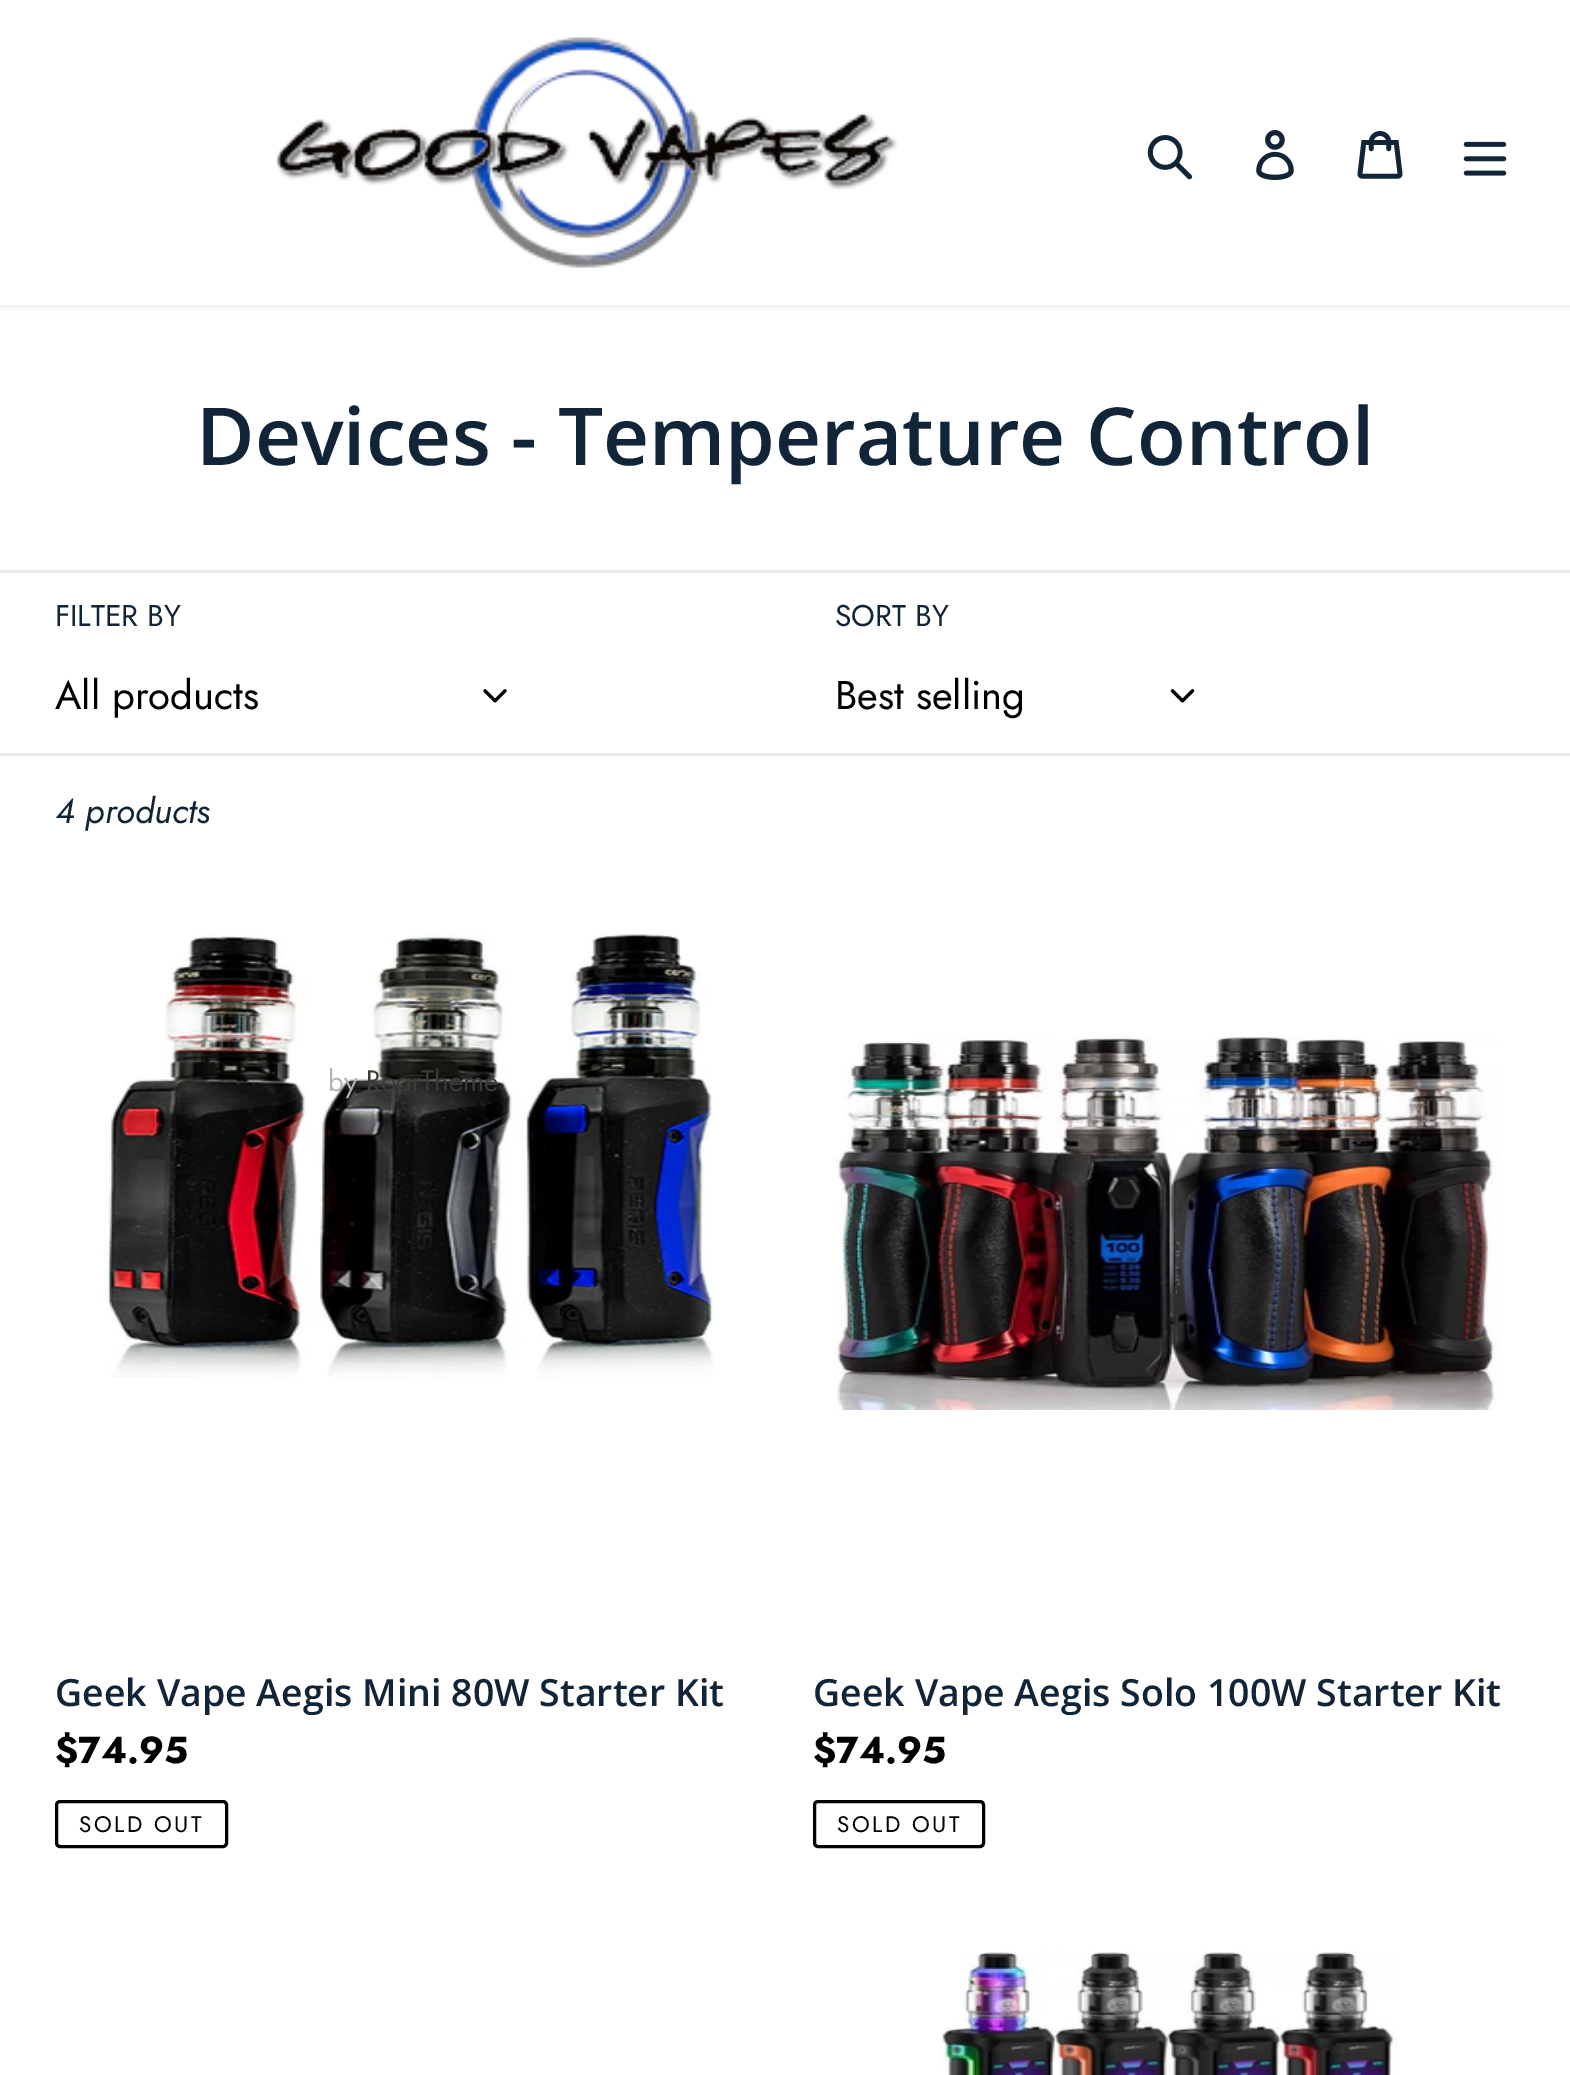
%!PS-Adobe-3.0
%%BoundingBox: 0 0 1570 2075
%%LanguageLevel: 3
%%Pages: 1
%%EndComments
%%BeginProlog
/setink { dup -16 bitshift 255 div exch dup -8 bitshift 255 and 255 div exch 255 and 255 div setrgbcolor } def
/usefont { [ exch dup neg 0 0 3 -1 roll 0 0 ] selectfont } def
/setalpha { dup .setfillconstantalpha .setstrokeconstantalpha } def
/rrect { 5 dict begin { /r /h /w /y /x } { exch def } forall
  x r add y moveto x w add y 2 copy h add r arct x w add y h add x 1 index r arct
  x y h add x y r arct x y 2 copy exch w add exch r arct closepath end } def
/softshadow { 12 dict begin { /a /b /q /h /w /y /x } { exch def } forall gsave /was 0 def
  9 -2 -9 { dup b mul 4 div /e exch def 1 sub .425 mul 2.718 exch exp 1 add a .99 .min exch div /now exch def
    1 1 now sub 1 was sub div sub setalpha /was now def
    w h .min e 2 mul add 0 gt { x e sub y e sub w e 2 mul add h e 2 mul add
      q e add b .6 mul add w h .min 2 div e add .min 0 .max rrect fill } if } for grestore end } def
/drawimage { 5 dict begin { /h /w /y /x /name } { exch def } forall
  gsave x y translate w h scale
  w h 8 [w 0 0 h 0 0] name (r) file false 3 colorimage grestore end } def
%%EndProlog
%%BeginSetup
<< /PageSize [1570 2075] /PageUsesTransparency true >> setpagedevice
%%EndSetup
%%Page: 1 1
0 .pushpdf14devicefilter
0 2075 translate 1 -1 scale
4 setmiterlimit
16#FFFFFF setink
0 0 1570 2075 rectfill
16#000000 setink
0 5 1570 300 0 5 0.1 softshadow
16#FFFFFF setink
0 0 1570 305 rectfill
(img1.raw) 276 37 622 231 drawimage
(img2.raw) 1147 135 46 45 drawimage
(img3.raw) 1256 130 38 50 drawimage
(img4.raw) 1357 131 46 48 drawimage
(img5.raw) 1463 141 44 35 drawimage
/OpenSans-SemiBold 80 usefont
16#112438 setink
196 465 moveto (Devices - Temperature Control) show
16#EBEBEB setink
0 570 1570 3 rectfill
/Jost-Regular 30 usefont
16#112438 setink
55 626 moveto (FILTER BY) show
/Jost-Regular 40 usefont
16#000000 setink
55 709 moveto (All products) show
(img6.raw) 483 689 24 14 drawimage
/Jost-Regular 30 usefont
16#112438 setink
835 626 moveto (SORT BY) show
/Jost-Regular 40 usefont
16#000000 setink
835 709 moveto (Best selling) show
(img7.raw) 1170 689 25 14 drawimage
16#EBEBEB setink
0 753 1570 3 rectfill
/Jost-Italic 35 usefont
16#112438 setink
55 823 moveto (4 products) show
(img8.raw) 103 934 611 444 drawimage
/OpenSans-SemiBold 37.5 usefont
55 1706 moveto (Geek Vape Aegis Mini 80W Starter Kit) show
/Jost-Bold 37.5 usefont
16#000000 setink
55 1763 moveto ($74.95) show
3 setlinewidth
56.5 1801.5 170 45 3.5 rrect stroke
/Jost-Regular 22.5 usefont
79 1832 moveto 2.5 0 (SOLD OUT) ashow
(img9.raw) 833 1036 666 374 drawimage
/OpenSans-SemiBold 37.5 usefont
16#112438 setink
813 1706 moveto (Geek Vape Aegis Solo 100W Starter Kit) show
/Jost-Bold 37.5 usefont
16#000000 setink
813 1763 moveto ($74.95) show
814.5 1801.5 169 45 3.5 rrect stroke
/Jost-Regular 22.5 usefont
837 1832 moveto 2.5 0 (SOLD OUT) ashow
(img10.raw) 940 1951 458 124 drawimage
/Futura-Regular 27.5 usefont
16#B3B3B2 setink
328 1091 moveto (by) show
16#3B3C39 setink
366 1091 moveto (RoarTheme) show
.poppdf14devicefilter showpage
%%EOF
